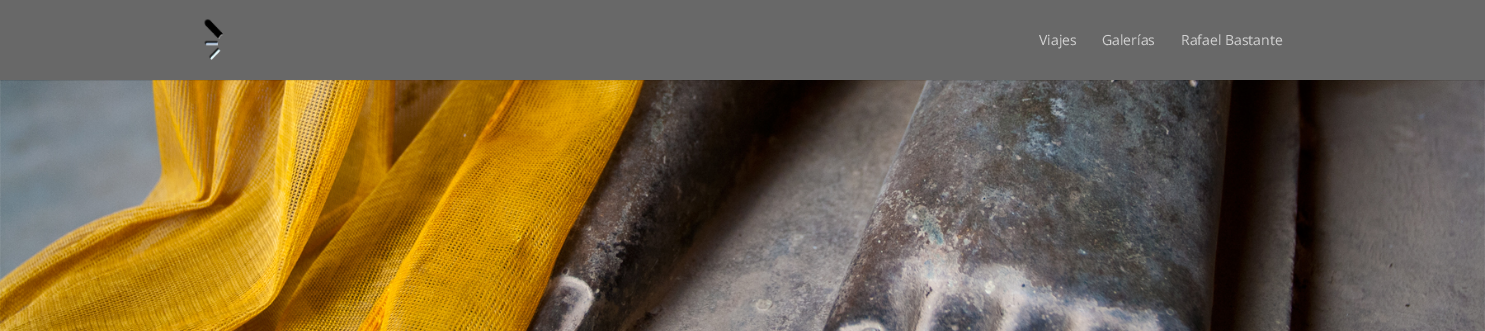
%!PS-Adobe-3.0
%%BoundingBox: 0 0 1485 331
%%LanguageLevel: 3
%%Pages: 1
%%EndComments
%%BeginProlog
/setink { dup -16 bitshift 255 div exch dup -8 bitshift 255 and 255 div exch 255 and 255 div setrgbcolor } def
/usefont { [ exch dup neg 0 0 3 -1 roll 0 0 ] selectfont } def
/setalpha { dup .setfillconstantalpha .setstrokeconstantalpha } def
/drawimage { 5 dict begin { /h /w /y /x /name } { exch def } forall
  gsave x y translate w h scale
  w h 8 [w 0 0 h 0 0] name (r) file false 3 colorimage grestore end } def
%%EndProlog
%%BeginSetup
<< /PageSize [1485 331] /PageUsesTransparency true >> setpagedevice
%%EndSetup
%%Page: 1 1
0 .pushpdf14devicefilter
0 331 translate 1 -1 scale
4 setmiterlimit
16#FFFFFF setink
0 0 1485 331 rectfill
(img2.raw) 0 80 1485 251 drawimage
0.1 setalpha
16#000000 setink
0 80 1485 1 rectfill
1 setalpha
16#686868 setink
0 0 1485 80 rectfill
(img1.raw) 204 19 19 41 drawimage
/OpenSans-Regular 14 usefont
16#D2D2D2 setink
[
    [(Viajes) 1039 45]
    [(Galerías) 1102 45]
    [(Rafael Bastante) 1181 45]
] { aload pop moveto show } forall
.poppdf14devicefilter showpage
%%EOF
